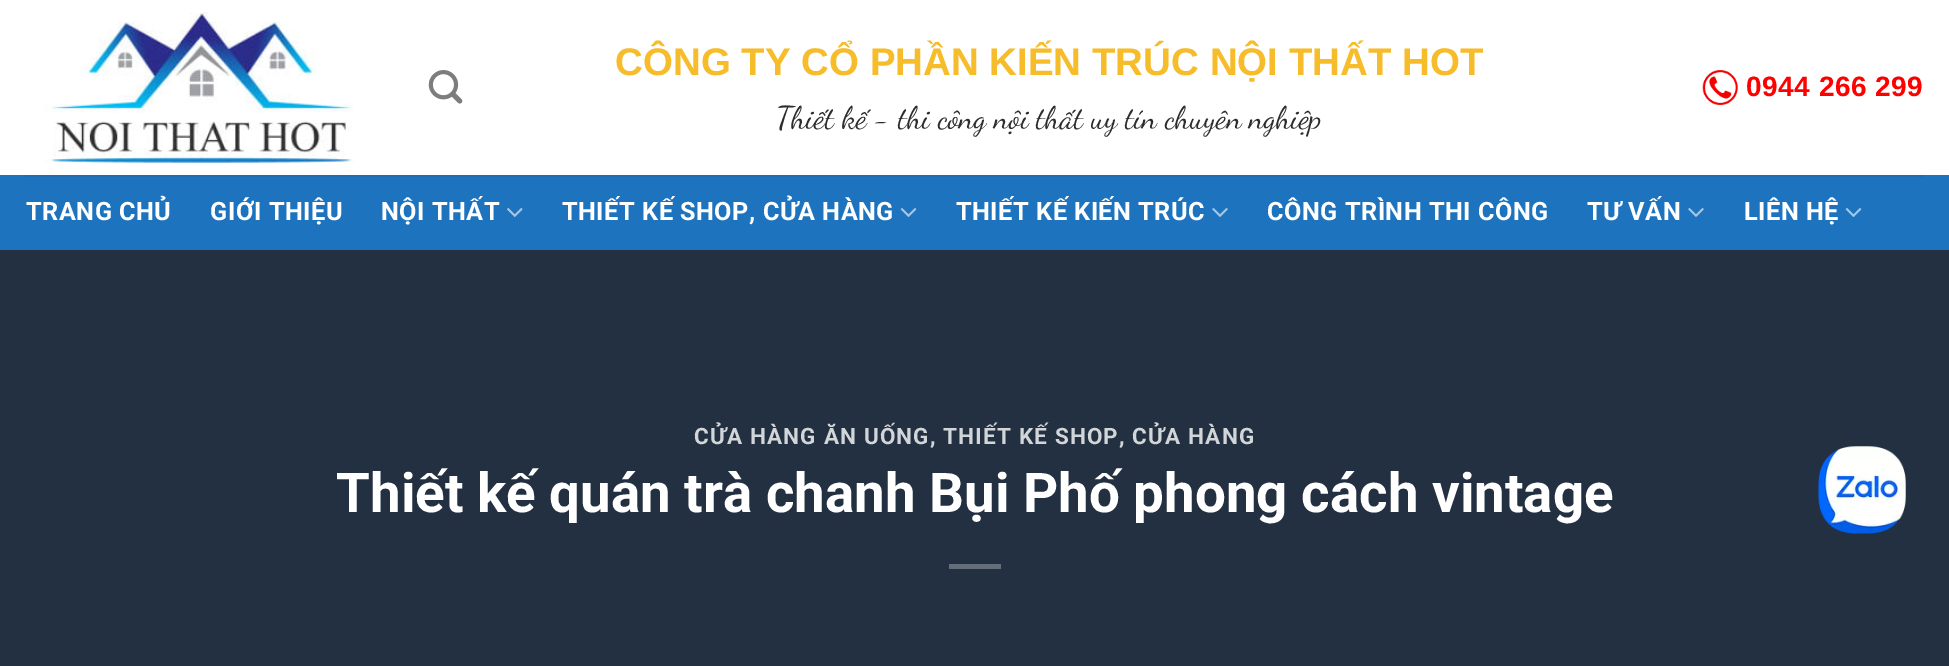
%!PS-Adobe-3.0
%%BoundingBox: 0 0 1949 666
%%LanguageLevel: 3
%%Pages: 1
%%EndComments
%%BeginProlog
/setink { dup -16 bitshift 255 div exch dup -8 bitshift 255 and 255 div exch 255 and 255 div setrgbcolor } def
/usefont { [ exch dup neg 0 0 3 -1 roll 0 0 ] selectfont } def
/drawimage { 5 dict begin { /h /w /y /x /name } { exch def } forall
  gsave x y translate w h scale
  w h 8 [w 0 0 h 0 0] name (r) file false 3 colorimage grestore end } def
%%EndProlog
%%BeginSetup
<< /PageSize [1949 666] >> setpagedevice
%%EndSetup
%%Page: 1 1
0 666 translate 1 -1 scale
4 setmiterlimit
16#FFFFFF setink
0 0 1949 666 rectfill
(img1.raw) 45 12 309 151 drawimage
(img2.raw) 428 70 35 34 drawimage
/LiberationSans-Bold 38.5 usefont
16#F6BC2A setink
615 75 moveto (CÔNG TY CỔ PHẦN KIẾN TRÚC NỘI THẤT HOT) show
/DancingScript-Regular 31.5 usefont
16#2D2D2D setink
776 128 moveto (Thiết kế - thi công nội thất uy tín chuyên nghiệp) show
(img3.raw) 1702 70 36 35 drawimage
/LiberationSans-Bold 28 usefont
16#FF0000 setink
1746 96 moveto 0.5 0 (0944 266 299) ashow
16#1D73BE setink
0 175 1949 75 rectfill
16#1F6CB0 setink
26 175 1897 2 rectfill
/Roboto-Bold 25.25 usefont
16#FFFFFF setink
26 220 moveto 0.5 0 (TRANG CHỦ) ashow
210 220 moveto 0.5 0 (GIỚI THIỆU) ashow
381 220 moveto 0.5 0 (NỘI THẤT) ashow
(img4.raw) 507 208 16 9 drawimage
562 220 moveto 0.5 0 (THIẾT KẾ SHOP, CỬA HÀNG) ashow
(img5.raw) 900 208 17 9 drawimage
956 220 moveto 0.5 0 (THIẾT KẾ KIẾN TRÚC) ashow
(img6.raw) 1212 208 16 9 drawimage
1267 220 moveto 0.5 0 (CÔNG TRÌNH THI CÔNG) ashow
1587 220 moveto 0.5 0 (TƯ VẤN) ashow
(img6.raw) 1688 208 16 9 drawimage
1744 220 moveto 0.5 0 (LIÊN HỆ) ashow
(img5.raw) 1845 208 17 9 drawimage
16#223041 setink
0 250 1949 416 rectfill
/Roboto-Bold 22.5 usefont
16#D3D6D9 setink
694 444 moveto 1.15 0 (CỬA HÀNG ĂN UỐNG, THIẾT KẾ SHOP, CỬA HÀNG) ashow
/Roboto-Bold 54.75 usefont
16#FFFFFF setink
336 512 moveto (Thiết kế quán trà chanh Bụi Phố phong cách vintage) show
16#646E7A setink
949 564 52 5 rectfill
(img7.raw) 1818 446 88 88 drawimage
showpage
%%EOF
